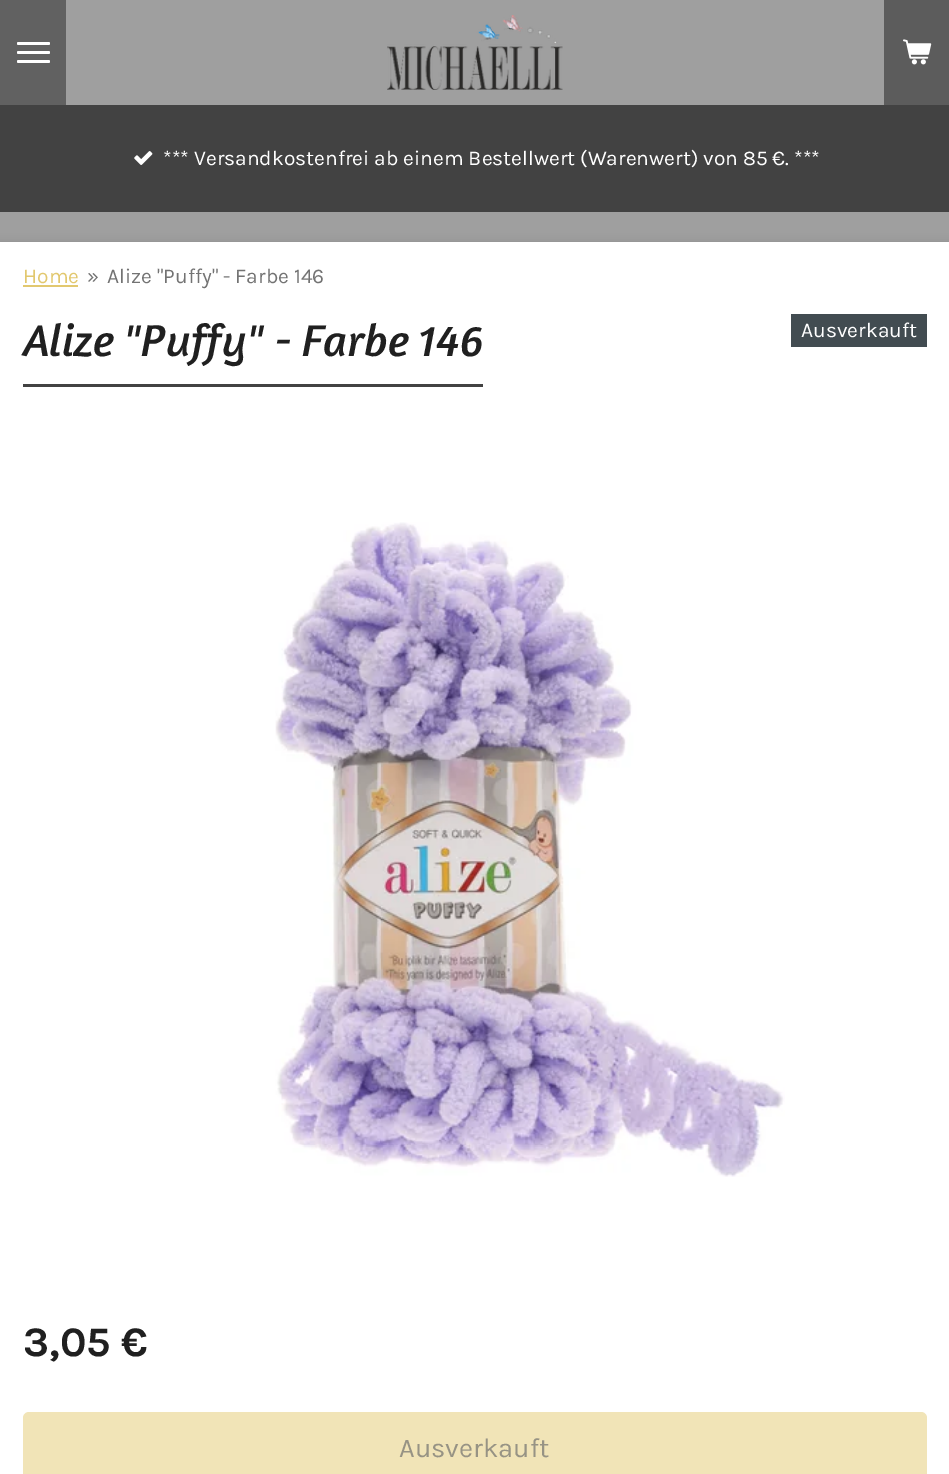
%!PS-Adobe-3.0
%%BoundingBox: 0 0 949 1474
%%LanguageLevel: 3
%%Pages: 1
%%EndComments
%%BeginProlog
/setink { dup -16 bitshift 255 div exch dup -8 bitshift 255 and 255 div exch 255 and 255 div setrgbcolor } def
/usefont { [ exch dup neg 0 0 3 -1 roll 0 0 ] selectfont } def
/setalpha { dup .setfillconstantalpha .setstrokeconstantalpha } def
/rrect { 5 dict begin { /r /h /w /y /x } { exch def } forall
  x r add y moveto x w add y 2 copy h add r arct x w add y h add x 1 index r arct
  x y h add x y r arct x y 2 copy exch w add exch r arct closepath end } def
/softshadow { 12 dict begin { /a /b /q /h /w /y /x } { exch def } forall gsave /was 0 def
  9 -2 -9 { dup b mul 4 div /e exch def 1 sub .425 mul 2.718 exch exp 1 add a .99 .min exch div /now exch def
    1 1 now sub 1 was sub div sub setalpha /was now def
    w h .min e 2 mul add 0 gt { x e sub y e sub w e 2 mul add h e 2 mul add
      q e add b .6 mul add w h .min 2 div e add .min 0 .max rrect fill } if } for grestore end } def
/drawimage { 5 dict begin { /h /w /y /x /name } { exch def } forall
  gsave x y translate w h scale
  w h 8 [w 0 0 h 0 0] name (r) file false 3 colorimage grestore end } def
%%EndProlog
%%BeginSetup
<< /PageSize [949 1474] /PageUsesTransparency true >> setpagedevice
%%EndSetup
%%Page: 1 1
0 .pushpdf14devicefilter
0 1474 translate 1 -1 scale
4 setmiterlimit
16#9F9F9F setink
0 0 949 1474 rectfill
16#616161 setink
0 0 66 105 rectfill
16#FFFFFF setink
17 51 33 3 1.5 rrect fill
17 42 33 3 1.5 rrect fill
17 60 33 3 1.5 rrect fill
(img1.raw) 387 15 176 75 drawimage
16#5C5C5C setink
884 0 65 105 rectfill
(img2.raw) 903 39 29 26 drawimage
16#424242 setink
0 105 949 107 rectfill
(img3.raw) 134 151 19 14 drawimage
/Karla-Regular 21 usefont
16#FFFFFF setink
163 165 moveto (*** Versandkostenfrei ab einem Bestellwert \(Warenwert\) von 85 €. ***) show
16#000000 setink
0 242 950 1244 0 4 0.1 softshadow
16#FFFFFF setink
0 242 949 1232 rectfill
16#E2C86F setink
23 283 moveto (Home) show
23 285 55 2 rectfill
16#737373 setink
87 283 moveto (») show
107 283 moveto (Alize "Puffy" - Farbe 146) show
16#424242 setink
23 384 460 3 rectfill
/Amaranth-Italic 45.75 usefont
16#202020 setink
23 356 moveto (Alize "Puffy" - Farbe 146) show
16#424C51 setink
791 314 136 33 rectfill
/Karla-Regular 21 usefont
16#FFFFFF setink
801 337 moveto (Ausverkauft) show
(img4.raw) 275 522 510 655 drawimage
/Karla-Bold 42 usefont
16#202020 setink
23 1356 moveto (3,05 €) show
16#F1E4B7 setink
23 1412 904 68 6 rrect fill
/Karla-Regular 27.25 usefont
16#979384 setink
399 1457 moveto (Ausverkauft) show
.poppdf14devicefilter showpage
%%EOF
